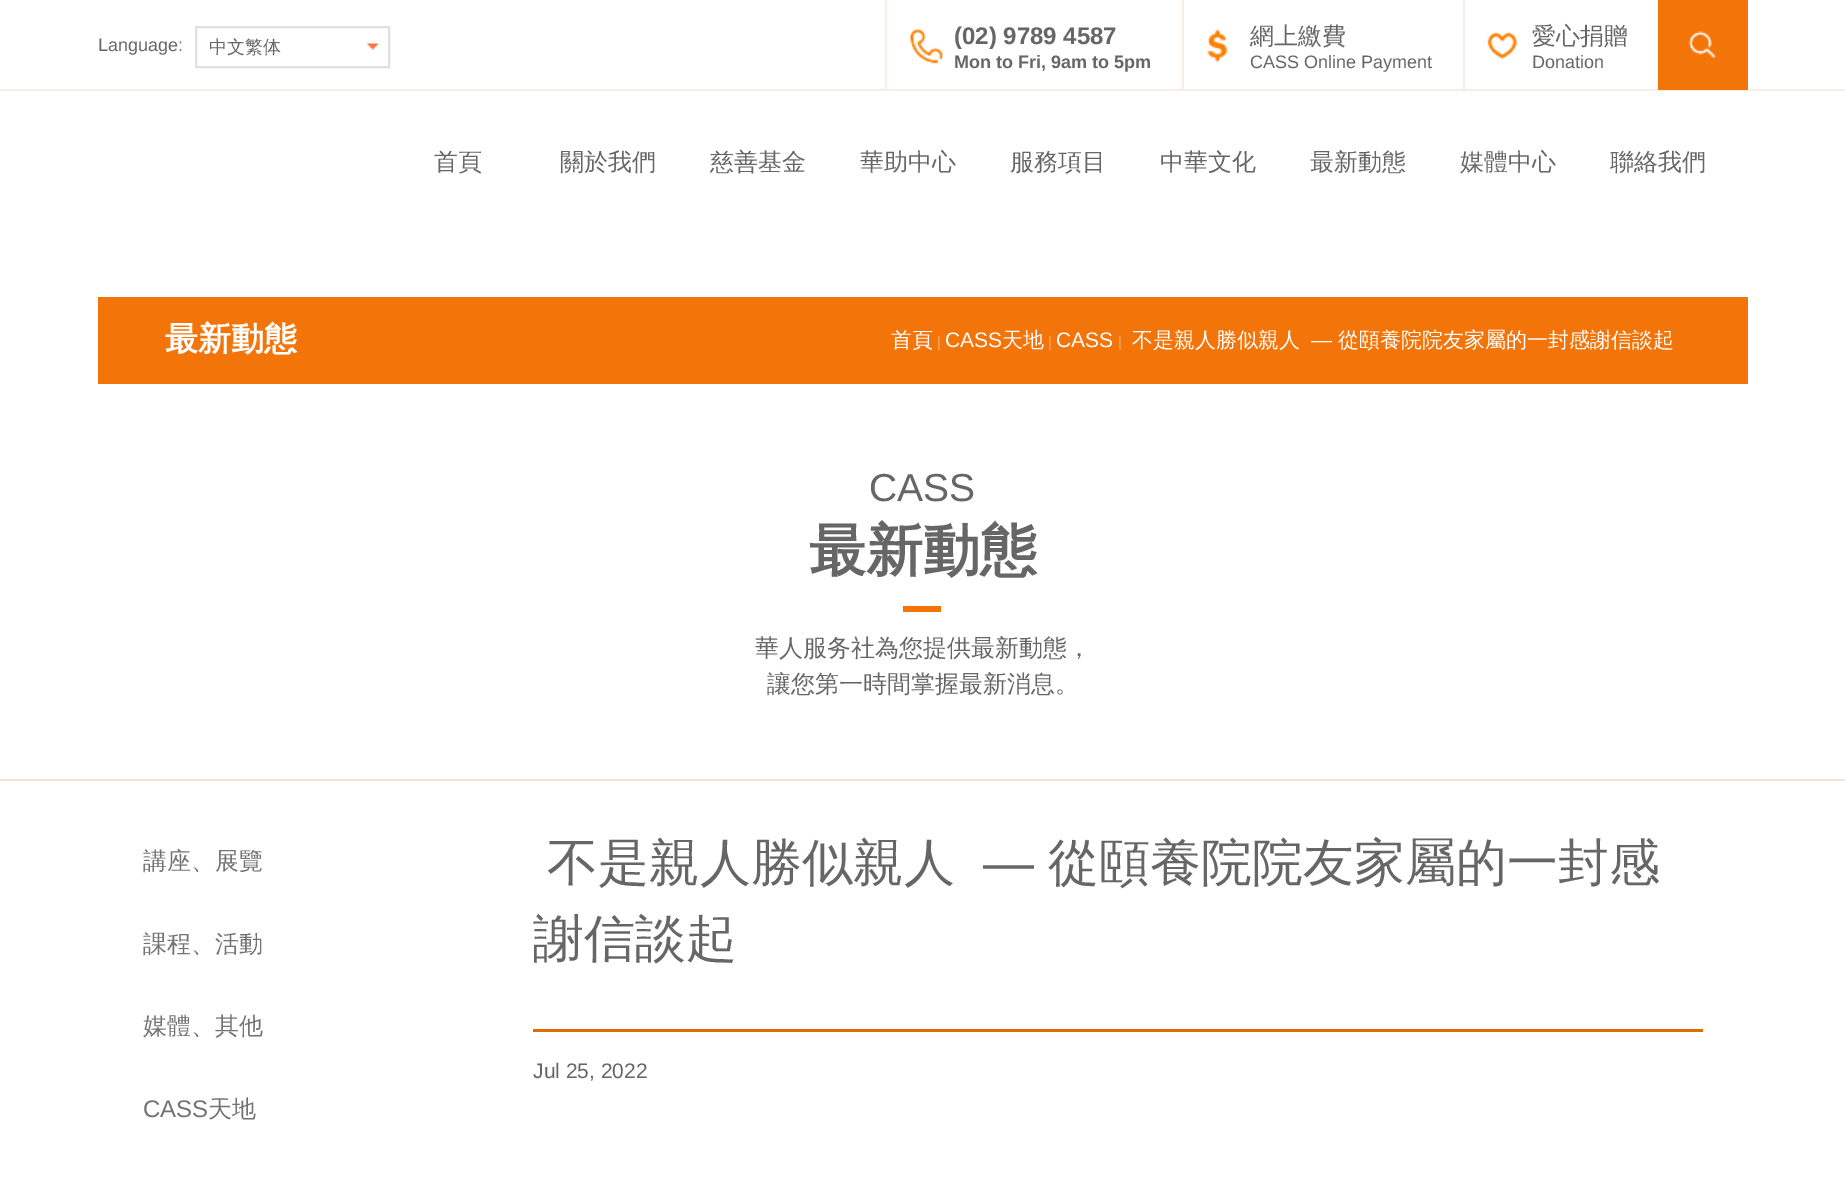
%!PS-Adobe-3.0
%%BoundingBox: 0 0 1845 1188
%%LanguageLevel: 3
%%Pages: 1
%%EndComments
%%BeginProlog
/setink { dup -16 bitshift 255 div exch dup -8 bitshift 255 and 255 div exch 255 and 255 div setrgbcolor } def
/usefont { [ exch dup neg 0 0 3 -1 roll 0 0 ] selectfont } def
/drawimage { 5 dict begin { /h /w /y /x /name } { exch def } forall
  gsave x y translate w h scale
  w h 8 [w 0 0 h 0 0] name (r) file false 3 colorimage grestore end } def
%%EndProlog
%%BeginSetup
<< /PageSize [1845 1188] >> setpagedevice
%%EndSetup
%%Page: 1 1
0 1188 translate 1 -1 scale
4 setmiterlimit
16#FFFFFF setink
0 0 1845 1188 rectfill
16#F9EDE4 setink
0 89 1845 2 rectfill
/LiberationSans-Regular 18 usefont
16#666666 setink
98 51 moveto (Language:) show
(img1.raw) 367 43 12 7 drawimage
16#E0E0E0 setink
2 setlinewidth
196 27 193 40 rectstroke
/WenQuanYiZenHei-Medium 18 usefont
16#666666 setink
209 53 moveto (中文繁体) show
(img2.raw) 910 28 34 36 drawimage
16#F9EDE4 setink
885 0 2 90 rectfill
/LiberationSans-Bold 24 usefont
16#666666 setink
954 44 moveto (\(02\) 9789 4587) show
/LiberationSans-Bold 18 usefont
954 68 moveto (Mon to Fri, 9am to 5pm) show
(img3.raw) 1207 29 21 33 drawimage
16#F9EDE4 setink
1182 0 2 90 rectfill
/WenQuanYiZenHei-Medium 24 usefont
16#666666 setink
1250 44 moveto (網上繳費) show
/LiberationSans-Regular 18 usefont
1250 68 moveto (CASS Online Payment) show
(img4.raw) 1487 32 30 27 drawimage
16#F9EDE4 setink
1463 0 2 90 rectfill
/WenQuanYiZenHei-Medium 24 usefont
16#666666 setink
1532 44 moveto (愛心捐贈) show
/LiberationSans-Regular 18 usefont
1532 68 moveto (Donation) show
16#F3750A setink
1658 0 90 90 rectfill
(img5.raw) 1688 31 29 28 drawimage
/WenQuanYiZenHei-Medium 24 usefont
16#666666 setink
[
    [(首頁) 434 170]
    [(關於我們) 560 170]
    [(慈善基金) 710 170]
    [(華助中心) 860 170]
    [(服務項目) 1010 170]
    [(中華文化) 1160 170]
    [(最新動態) 1310 170]
    [(媒體中心) 1460 170]
    [(聯絡我們) 1610 170]
] { aload pop moveto show } forall
16#F3750A setink
98 297 1650 87 rectfill
/WenQuanYiZenHei-Bold 33 usefont
16#FFFFFF setink
165 350 moveto (最新動態) show
/WenQuanYiZenHei-Medium 21 usefont
891 347 moveto (首頁) show
/LiberationSans-Regular 15 usefont
16#F8AC6C setink
937 347 moveto (|) show
/LiberationSans-Regular 21 usefont
16#FFFFFF setink
945 347 moveto (CASS) show
/WenQuanYiZenHei-Medium 21 usefont
1002 347 moveto (天地) show
/LiberationSans-Regular 15 usefont
16#F8AC6C setink
1048 347 moveto (|) show
/LiberationSans-Regular 21 usefont
16#FFFFFF setink
1056 347 moveto (CASS) show
/LiberationSans-Regular 15 usefont
16#F8AC6C setink
1118 347 moveto (|) show
/WenQuanYiZenHei-Medium 21 usefont
16#FFFFFF setink
1132 347 moveto (不是親人勝似親人) show
/LiberationSans-Regular 21 usefont
1311 347 moveto (—) show
/WenQuanYiZenHei-Medium 21 usefont
1338 347 moveto (從頤養院院友家屬的一封感謝信談起) show
/LiberationSans-Regular 39 usefont
16#666666 setink
869 501 moveto (CASS) show
/WenQuanYiZenHei-Bold 57 usefont
809 570 moveto (最新動態) show
16#F3750A setink
903 606 38 6 rectfill
/WenQuanYiZenHei-Medium 24 usefont
16#666666 setink
755 656 moveto (華人服务社為您提供最新動態，) show
767 692 moveto (讓您第一時間掌握最新消息。) show
16#F2E3D4 setink
0 779 1845 2 rectfill
16#737373 setink
[
    [(講座、展覽) 143 869]
    [(課程、活動) 143 952]
    [(媒體、其他) 143 1034]
] { aload pop moveto show } forall
/LiberationSans-Regular 24 usefont
143 1117 moveto (CASS) show
/WenQuanYiZenHei-Medium 24 usefont
208 1117 moveto (天地) show
16#E26B02 setink
533 1029 1170 3 rectfill
/WenQuanYiZenHei-Medium 51 usefont
16#666666 setink
547 880 moveto (不是親人勝似親人) show
/LiberationSans-Regular 51 usefont
983 880 moveto (—) show
/WenQuanYiZenHei-Medium 51 usefont
1048 880 moveto (從頤養院院友家屬的一封感) show
533 956 moveto (謝信談起) show
/LiberationSans-Regular 21 usefont
533 1078 moveto (Jul 25, 2022) show
showpage
%%EOF
